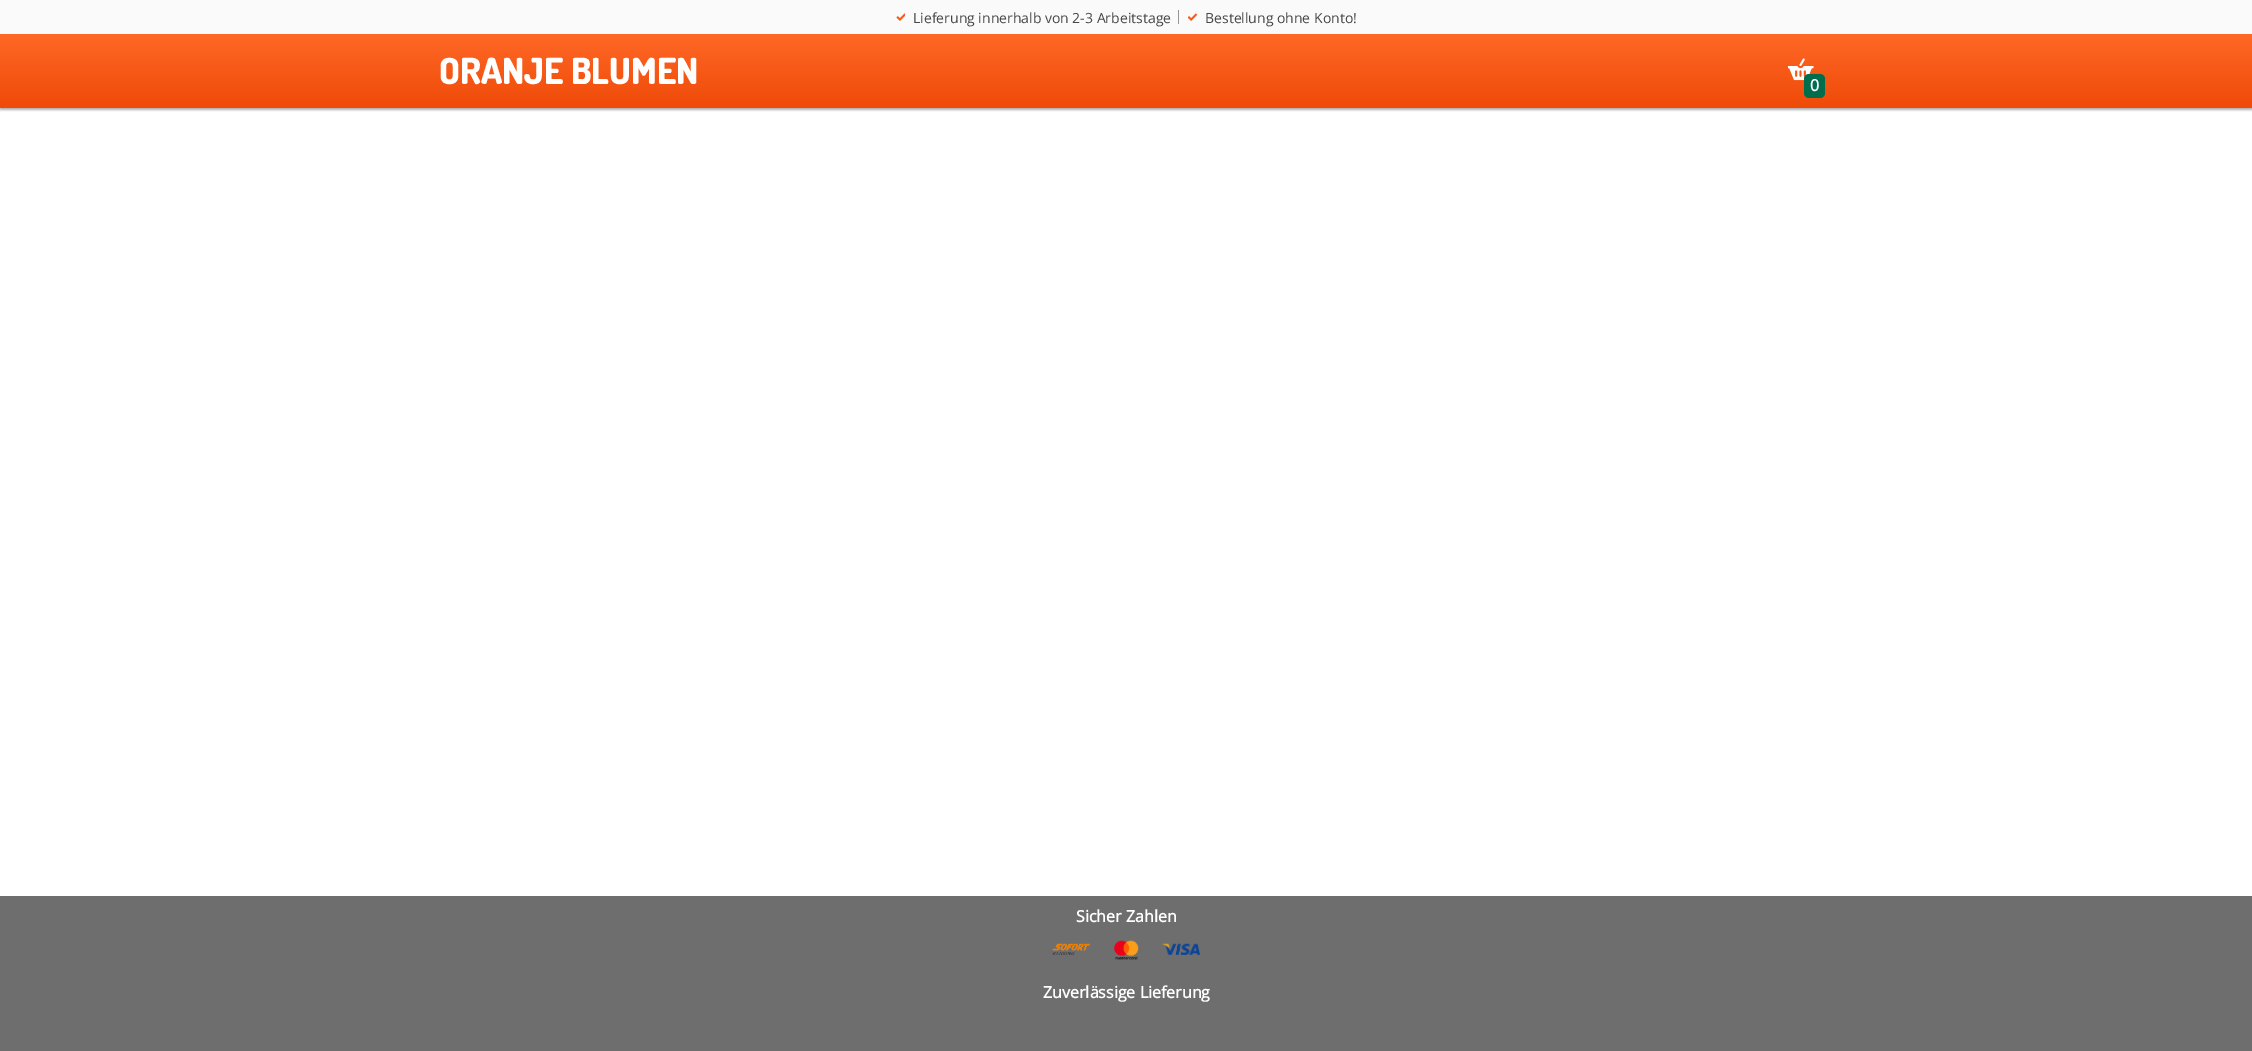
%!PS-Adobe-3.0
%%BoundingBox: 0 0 2252 1051
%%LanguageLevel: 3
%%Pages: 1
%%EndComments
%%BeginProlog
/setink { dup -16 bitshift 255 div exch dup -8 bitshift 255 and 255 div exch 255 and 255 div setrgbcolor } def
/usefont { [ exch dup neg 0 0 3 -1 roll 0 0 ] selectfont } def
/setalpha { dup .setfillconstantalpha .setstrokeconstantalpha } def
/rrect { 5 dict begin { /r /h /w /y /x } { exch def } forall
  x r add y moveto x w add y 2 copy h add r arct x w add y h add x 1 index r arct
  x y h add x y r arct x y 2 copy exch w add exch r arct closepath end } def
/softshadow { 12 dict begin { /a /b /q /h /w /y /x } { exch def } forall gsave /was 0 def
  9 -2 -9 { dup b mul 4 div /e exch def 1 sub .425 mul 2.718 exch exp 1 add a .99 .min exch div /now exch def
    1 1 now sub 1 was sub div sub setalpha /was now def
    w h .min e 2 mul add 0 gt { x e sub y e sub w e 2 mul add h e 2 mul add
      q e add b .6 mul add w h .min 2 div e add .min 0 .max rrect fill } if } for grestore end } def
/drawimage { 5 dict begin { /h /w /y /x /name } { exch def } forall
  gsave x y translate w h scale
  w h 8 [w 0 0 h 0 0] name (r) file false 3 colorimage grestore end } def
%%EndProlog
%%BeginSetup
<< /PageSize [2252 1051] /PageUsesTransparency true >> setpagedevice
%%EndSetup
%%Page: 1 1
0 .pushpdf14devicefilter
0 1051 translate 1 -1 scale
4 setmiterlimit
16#FFFFFF setink
0 0 2252 1051 rectfill
16#FAFAFA setink
0 0 2252 34 rectfill
16#969696 setink
1178 10 1 14 rectfill
(img1.raw) 896 13 9 8 drawimage
/OpenSans-Regular 14 usefont
16#464646 setink
913 23 moveto (Lieferung innerhalb von 2-3 Arbeitstage) show
(img2.raw) 1188 13 10 8 drawimage
1205 23 moveto (Bestellung ohne Konto!) show
16#1E1E1E setink
0 36 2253 74 0 1 0.35 softshadow
gsave 0 34 moveto 2252 34 lineto 2252 108 lineto 0 108 lineto closepath clip newpath
<< /ShadingType 2 /ColorSpace /DeviceRGB /Coords [1126 34 1126 108] /Extend [true true] /Function << /FunctionType 2 /Domain [0 1] /C0 [1 0.408 0.149] /C1 [0.937 0.29 0.031] /N 1 >> >> shfill grestore
/Dosis-ExtraBold 36 usefont
16#FFFFFF setink
439 84 moveto (ORANJE BLUMEN) show
(img3.raw) 1788 58 26 23 drawimage
16#006D4C setink
1804 74 21 24 5 rrect fill
/OpenSans-Bold 16 usefont
16#FFFFFF setink
1810 91 moveto (0) show
16#6E6E6E setink
0 896 2252 155 rectfill
16#FFFFFF setink
1076 922 moveto (Sicher Zahlen) show
(img4.raw) 1052 943 38 12 drawimage
(img5.raw) 1113 940 26 20 drawimage
(img6.raw) 1162 943 38 12 drawimage
1043 998 moveto (Zuverlässige Lieferung) show
.poppdf14devicefilter showpage
%%EOF
